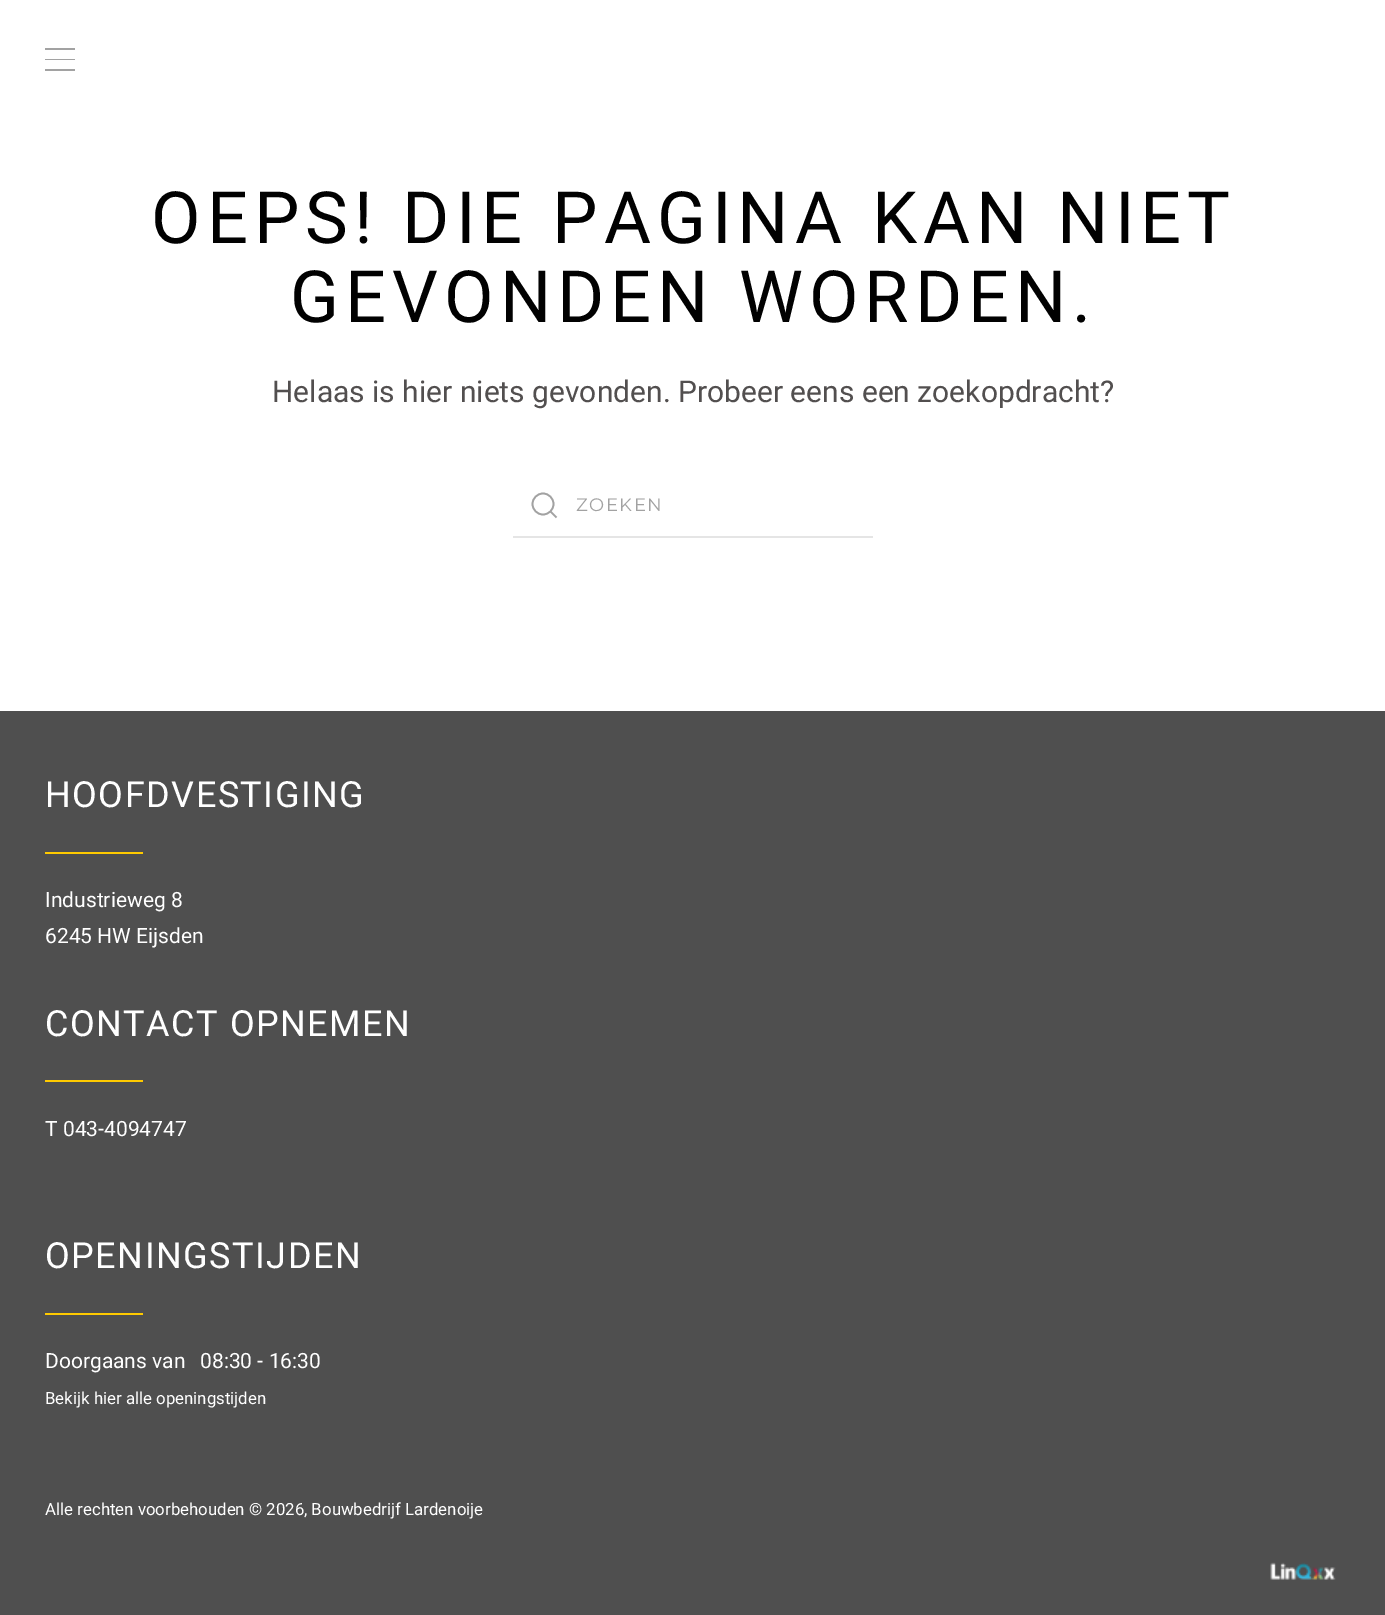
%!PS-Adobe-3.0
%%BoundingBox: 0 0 1385 1615
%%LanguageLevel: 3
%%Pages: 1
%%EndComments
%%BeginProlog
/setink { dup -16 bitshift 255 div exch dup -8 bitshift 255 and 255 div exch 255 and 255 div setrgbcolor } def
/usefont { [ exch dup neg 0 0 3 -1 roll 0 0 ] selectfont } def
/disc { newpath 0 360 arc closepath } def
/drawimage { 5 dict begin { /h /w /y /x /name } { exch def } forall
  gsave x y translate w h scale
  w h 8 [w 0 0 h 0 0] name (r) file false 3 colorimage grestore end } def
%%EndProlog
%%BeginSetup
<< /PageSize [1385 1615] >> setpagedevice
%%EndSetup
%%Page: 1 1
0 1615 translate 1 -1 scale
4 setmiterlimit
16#FFFFFF setink
0 0 1385 1615 rectfill
[
    [45 48 30 2 16#A2A2A2]
    [45 59 30 1 16#A2A2A2]
    [45 69 30 2 16#A2A2A2]
] { aload pop setink rectfill } forall
/Roboto-Regular 72.1 usefont
16#010101 setink
151 243 moveto 6 0 (OEPS! DIE PAGINA KAN NIET) ashow
290 322 moveto 6 0 (GEVONDEN WORDEN.) ashow
/Roboto-Regular 30 usefont
16#524F4F setink
272 402 moveto (Helaas is hier niets gevonden. Probeer eens een zoekopdracht?) show
16#A2A2A2 setink
1.7 setlinewidth
543 504 10.5 disc stroke
550.5 511.5 moveto 556.5 517.5 lineto closepath stroke
16#E5E5E5 setink
513 536 360 2 rectfill
/Montserrat-Thin 18 usefont
16#A2A2A2 setink
576 511 moveto 1.5 0 (ZOEKEN) ashow
16#4F4F4F setink
0 711 1385 904 rectfill
/Roboto-Regular 36 usefont
16#FFFFFF setink
45 807 moveto 1.5 0 (HOOFDVESTIGING) ashow
16#FFCA00 setink
45 852 98 2 rectfill
/Roboto-Regular 21 usefont
16#FFFFFF setink
45 907 moveto (Industrieweg 8) show
45 943 moveto (6245 HW Eijsden) show
/Roboto-Regular 36 usefont
45 1036 moveto 1.5 0 (CONTACT OPNEMEN) ashow
16#FFCA00 setink
45 1080 98 2 rectfill
/Roboto-Regular 21 usefont
16#FFFFFF setink
45 1136 moveto (T 043-4094747) show
/Roboto-Regular 36 usefont
45 1268 moveto 1.5 0 (OPENINGSTIJDEN) ashow
16#FFCA00 setink
45 1313 98 2 rectfill
/Roboto-Regular 21 usefont
16#FFFFFF setink
45 1368 moveto (Doorgaans van) show
200 1368 moveto (08:30 - 16:30) show
/Roboto-Regular 16.8 usefont
45 1404 moveto (Bekijk hier alle openingstijden) show
45 1515 moveto (Alle rechten voorbehouden © 2026, Bouwbedrijf Lardenoije) show
(img1.raw) 1270 1562 66 18 drawimage
showpage
%%EOF
